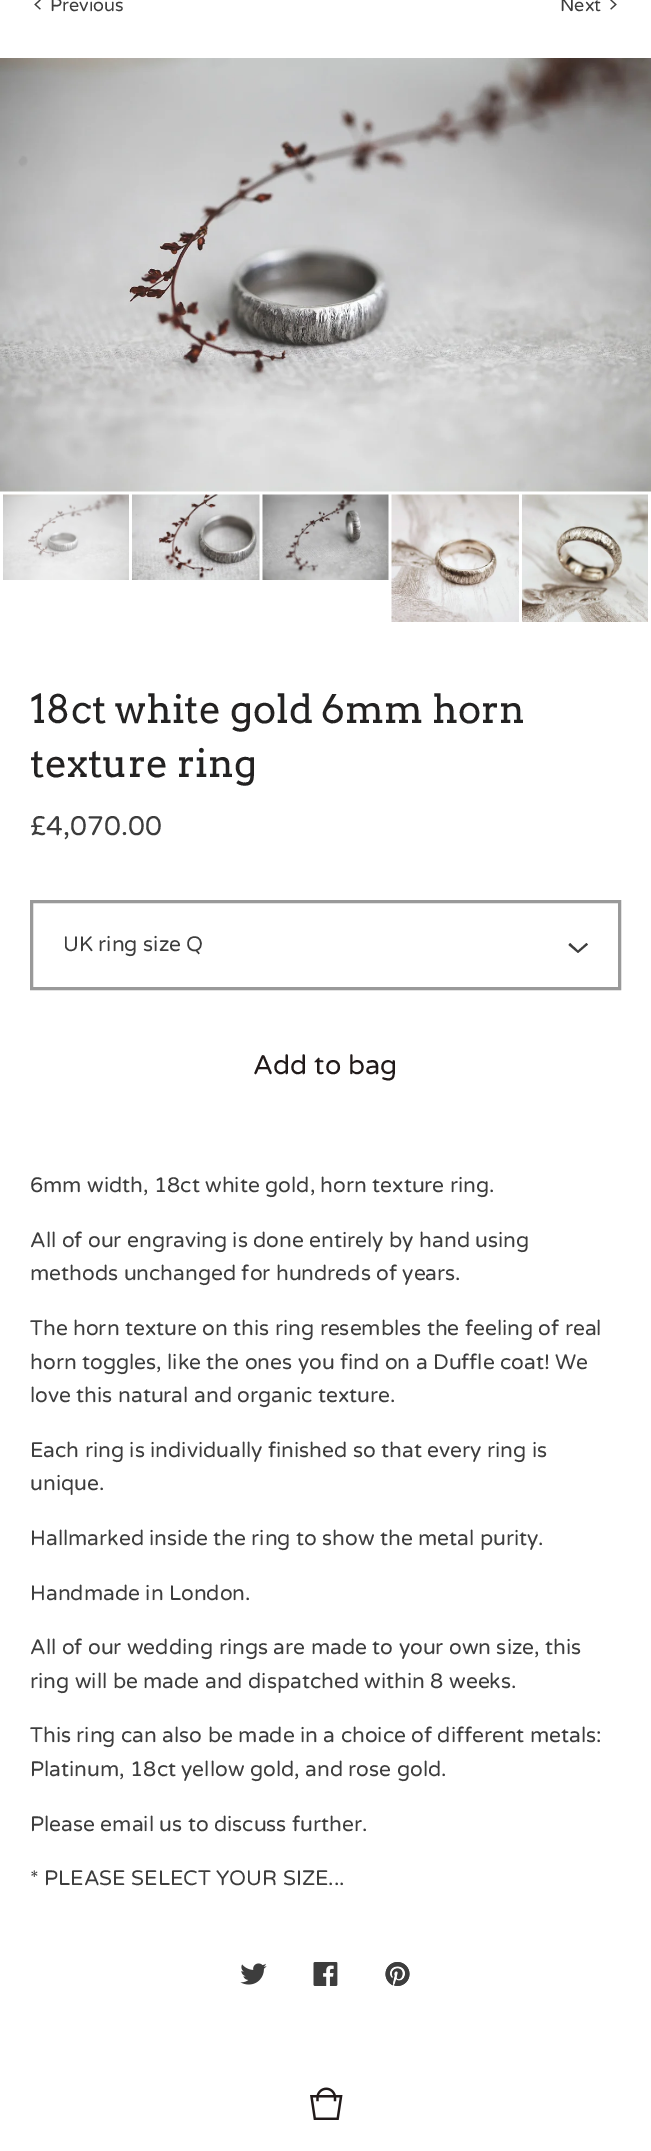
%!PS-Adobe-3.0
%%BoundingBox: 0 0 651 2151
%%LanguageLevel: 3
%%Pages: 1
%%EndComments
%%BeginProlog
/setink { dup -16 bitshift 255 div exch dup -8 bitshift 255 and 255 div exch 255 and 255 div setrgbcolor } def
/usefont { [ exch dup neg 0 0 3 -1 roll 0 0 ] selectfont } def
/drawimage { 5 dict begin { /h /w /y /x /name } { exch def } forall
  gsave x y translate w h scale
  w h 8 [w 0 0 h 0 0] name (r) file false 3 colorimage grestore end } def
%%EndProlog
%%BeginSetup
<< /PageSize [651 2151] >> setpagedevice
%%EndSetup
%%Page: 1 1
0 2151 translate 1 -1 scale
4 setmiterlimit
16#FFFFFF setink
0 0 651 2151 rectfill
(img1.raw) 34 0 7 10 drawimage
/VarelaRound-Regular 18 usefont
16#3D3D3D setink
50 11 moveto (Previous) show
560 11 moveto (Next) show
(img2.raw) 610 0 7 10 drawimage
(img3.raw) 0 58 651 434 drawimage
(img4.raw) 3 494 126 86 drawimage
(img5.raw) 132 494 128 86 drawimage
(img6.raw) 262 494 127 86 drawimage
(img7.raw) 391 494 128 128 drawimage
(img8.raw) 522 494 126 128 drawimage
/Arvo-Regular 39 usefont
16#232222 setink
30 723 moveto (18ct white gold 6mm horn) show
30 777 moveto (texture ring) show
/VarelaRound-Regular 27 usefont
16#3D3D3D setink
30 835 moveto (£4,070.00) show
16#999999 setink
3 setlinewidth
31.5 901.5 588 87 rectstroke
/VarelaRound-Regular 21 usefont
16#3D3D3D setink
63 951 moveto (UK ring size Q) show
588 944.5 moveto 578 953 lineto 568.5 945 lineto 570 943 lineto 578 950.5 lineto 586.5 943 lineto closepath fill
/VarelaRound-Regular 27 usefont
16#211A1A setink
253 1074 moveto (Add to bag) show
/VarelaRound-Regular 21 usefont
16#3D3D3D setink
[
    [(6mm width, 18ct white gold, horn texture ring.) 30 1192]
    [(All of our engraving is done entirely by hand using) 30 1247]
    [(methods unchanged for hundreds of years.) 30 1280]
    [(The horn texture on this ring resembles the feeling of real) 30 1335]
    [(horn toggles, like the ones you find on a Duffle coat! We) 30 1369]
    [(love this natural and organic texture.) 30 1402]
    [(Each ring is individually finished so that every ring is) 30 1457]
    [(unique.) 30 1490]
    [(Hallmarked inside the ring to show the metal purity.) 30 1545]
    [(Handmade in London.) 30 1600]
    [(All of our wedding rings are made to your own size, this) 30 1654]
    [(ring will be made and dispatched within 8 weeks.) 30 1688]
    [(This ring can also be made in a choice of different metals:) 30 1742]
    [(Platinum, 18ct yellow gold, and rose gold.) 30 1776]
    [(Please email us to discuss further.) 30 1831]
    [(* PLEASE SELECT YOUR SIZE...) 30 1885]
] { aload pop moveto show } forall
(img9.raw) 240 1963 27 22 drawimage
(img10.raw) 313 1962 25 24 drawimage
(img11.raw) 385 1962 25 24 drawimage
(img12.raw) 310 2087 33 33 drawimage
showpage
%%EOF
